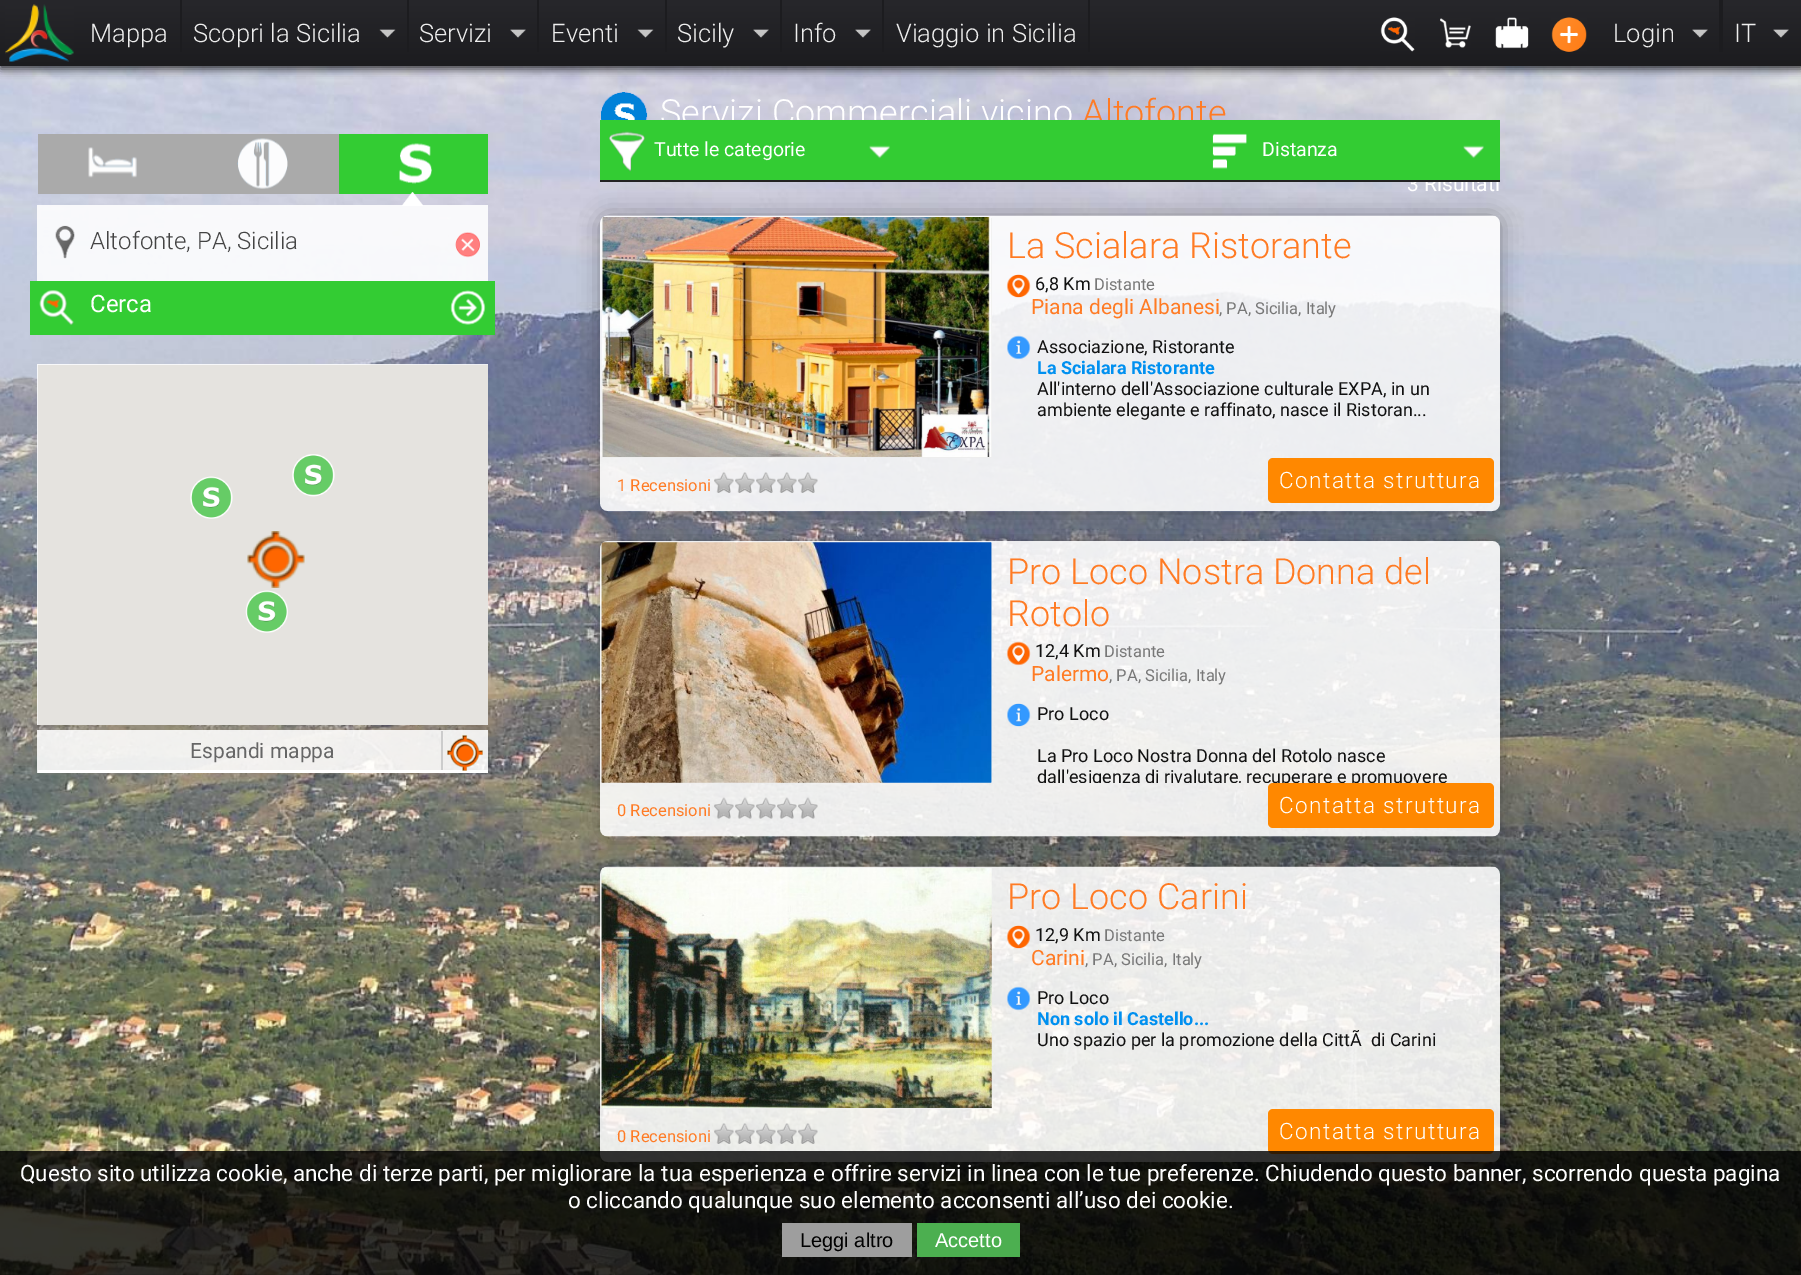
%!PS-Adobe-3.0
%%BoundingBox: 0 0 1801 1275
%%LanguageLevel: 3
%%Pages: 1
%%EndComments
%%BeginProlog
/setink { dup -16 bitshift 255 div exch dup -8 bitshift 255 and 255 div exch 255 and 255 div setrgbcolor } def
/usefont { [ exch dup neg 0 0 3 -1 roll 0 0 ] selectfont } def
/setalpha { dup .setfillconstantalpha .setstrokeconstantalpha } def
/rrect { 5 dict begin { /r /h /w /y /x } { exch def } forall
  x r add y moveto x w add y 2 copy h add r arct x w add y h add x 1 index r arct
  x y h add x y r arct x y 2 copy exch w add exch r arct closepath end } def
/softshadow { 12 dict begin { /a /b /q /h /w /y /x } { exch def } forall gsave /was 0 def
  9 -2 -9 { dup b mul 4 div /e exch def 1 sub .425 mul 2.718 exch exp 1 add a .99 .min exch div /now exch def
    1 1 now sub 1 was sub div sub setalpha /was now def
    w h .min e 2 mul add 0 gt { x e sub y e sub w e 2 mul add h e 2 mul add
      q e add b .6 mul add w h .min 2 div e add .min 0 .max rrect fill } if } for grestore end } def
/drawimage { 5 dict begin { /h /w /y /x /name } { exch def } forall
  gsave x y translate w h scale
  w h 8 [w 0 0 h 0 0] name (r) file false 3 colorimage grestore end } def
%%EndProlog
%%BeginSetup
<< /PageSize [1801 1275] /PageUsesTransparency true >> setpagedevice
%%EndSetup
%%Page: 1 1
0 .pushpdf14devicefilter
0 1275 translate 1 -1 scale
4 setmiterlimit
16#FFFFFF setink
0 0 1801 1275 rectfill
(img9.raw) 0 66 1801 1209 drawimage
16#000000 setink
0 3 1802 66 0 4.5 0.75 softshadow
gsave 0 0 moveto 1801 0 lineto 1801 66 lineto 0 66 lineto closepath clip newpath
<< /ShadingType 2 /ColorSpace /DeviceRGB /Coords [0 0 0 66] /Extend [true true] /Function << /FunctionType 2 /Domain [0 1] /C0 [0.153 0.153 0.169] /C1 [0.11 0.11 0.122] /N 1 >> >> shfill grestore
(img1.raw) 5 4 69 58 drawimage
16#1C1C1F setink
180 0 2 52 rectfill
/Roboto-Light 25.5 usefont
16#EEEEEE setink
90 42 moveto (Mappa) show
(img2.raw) 379 29 17 9 drawimage
16#1C1C1F setink
407 0 2 52 rectfill
16#EEEEEE setink
193 42 moveto (Scopri la Sicilia) show
(img3.raw) 510 29 16 9 drawimage
16#1C1C1F setink
537 0 2 52 rectfill
16#EEEEEE setink
419 42 moveto (Servizi) show
(img4.raw) 637 29 17 9 drawimage
16#1C1C1F setink
665 0 2 52 rectfill
16#EEEEEE setink
551 42 moveto (Eventi) show
(img3.raw) 753 29 16 9 drawimage
16#1C1C1F setink
780 0 2 52 rectfill
16#EEEEEE setink
677 42 moveto (Sicily) show
(img3.raw) 855 29 16 9 drawimage
16#1C1C1F setink
882 0 2 52 rectfill
16#EEEEEE setink
793 42 moveto (Info) show
16#1C1C1F setink
1088 0 2 52 rectfill
16#EEEEEE setink
896 42 moveto (Viaggio in Sicilia) show
(img5.raw) 1380 17 35 35 drawimage
(img6.raw) 1440 18 31 30 drawimage
(img7.raw) 1495 17 34 32 drawimage
(img8.raw) 1551 17 36 35 drawimage
(img3.raw) 1692 29 16 9 drawimage
16#1C1C1F setink
1719 0 4 52 rectfill
16#EEEEEE setink
1613 42 moveto (Login) show
(img3.raw) 1773 29 16 9 drawimage
1734 42 moveto (IT) show
16#AAAAAA setink
38 134 301 60 rectfill
(img10.raw) 88 147 49 31 drawimage
16#33CC33 setink
339 134 149 60 rectfill
(img11.raw) 399 143 33 41 drawimage
(img12.raw) 237 138 51 51 drawimage
0.88 setalpha
16#FFFFFF setink
37 205 451 76 rectfill
1 setalpha
(img13.raw) 402 192 21 14 drawimage
(img14.raw) 55 225 20 34 drawimage
/Roboto-Light 24 usefont
16#444444 setink
90 249 moveto (Altofonte, PA, Sicilia) show
(img15.raw) 455 232 25 26 drawimage
16#33CC33 setink
30 281 465 54 rectfill
(img16.raw) 39 290 35 36 drawimage
/Roboto-Regular 24 usefont
16#FFFFFF setink
90 312 moveto (Cerca) show
(img17.raw) 450 290 36 35 drawimage
0.88 setalpha
37 364 451 361 rectfill
1 setalpha
16#E5E3DF setink
38 365 450 360 rectfill
(img18.raw) 190 476 43 43 drawimage
(img19.raw) 292 454 43 43 drawimage
(img20.raw) 247 531 58 57 drawimage
(img21.raw) 245 590 43 43 drawimage
0.88 setalpha
16#FFFFFF setink
37 730 451 43 rectfill
1 setalpha
38 770 450 3 rectfill
/Roboto-Regular 21 usefont
16#666666 setink
190 758 moveto (Espandi mappa) show
16#CCCCCC setink
441 731 2 39 rectfill
(img22.raw) 447 735 36 36 drawimage
(img23.raw) 601 92 47 28 drawimage
/Roboto-Light 36 usefont
16#FFFFFF setink
660 125 moveto (Servizi Commerciali vicino) show
16#FF7B24 setink
1082 125 moveto (Altofonte) show
/Roboto-Regular 21 usefont
16#FFFFFF setink
1407 191 moveto (3 Risultati) show
16#33CC33 setink
600 120 900 60 rectfill
16#222222 setink
600 180 900 2 rectfill
(img24.raw) 609 131 36 41 drawimage
/Roboto-Regular 19.5 usefont
16#FFFFFF setink
654 156 moveto (Tutte le categorie) show
(img25.raw) 869 145 21 14 drawimage
(img26.raw) 1212 133 35 36 drawimage
1262 156 moveto (Distanza) show
(img27.raw) 1463 145 21 14 drawimage
gsave
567 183 moveto 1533 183 lineto 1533 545 lineto 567 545 lineto closepath 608 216 moveto 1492 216 lineto 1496.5 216 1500 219.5 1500 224 curveto 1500 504 lineto 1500 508.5 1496.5 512 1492 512 curveto 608 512 lineto 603.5 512 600 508.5 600 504 curveto 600 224 lineto 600 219.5 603.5 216 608 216 curveto closepath eoclip newpath
16#323232 setink
600 216 900 296 8 10.5 0.45 softshadow
grestore
(img28.raw) 600 215 900 296 drawimage
16#EEEEEE setink
602 218 390 240 rectfill
(img29.raw) 601 217 391 240 drawimage
16#D3D1D1 setink
602 217 1 1 rectfill
/Roboto-Light 36 usefont
16#FF7B24 setink
1007 258 moveto (La Scialara Ristorante) show
(img30.raw) 1006 274 25 24 drawimage
/Roboto-Regular 18 usefont
16#111111 setink
1035 290 moveto (6,8 Km) show
/Roboto-Regular 16.5 usefont
16#777777 setink
1094 290 moveto (Distante) show
/Roboto-Regular 21 usefont
16#FF7B24 setink
1031 314 moveto (Piana degli Albanesi) show
/Roboto-Regular 16.5 usefont
16#777777 setink
1219 314 moveto (, PA, Sicilia, Italy) show
(img31.raw) 1007 335 24 25 drawimage
/Roboto-Regular 18 usefont
16#111111 setink
1037 353 moveto (Associazione, Ristorante) show
/Roboto-Bold 18 usefont
16#0090F0 setink
1037 374 moveto (La Scialara Ristorante) show
/Roboto-Regular 18 usefont
16#111111 setink
1037 395 moveto (All'interno dell'Associazione culturale EXPA, in un) show
1037 416 moveto (ambiente elegante e raffinato, nasce il Ristoran...) show
/Roboto-Regular 16.5 usefont
16#FF7B24 setink
617 491 moveto (1 Recensioni) show
(img32.raw) 714 472 20 21 drawimage
(img33.raw) 735 472 20 21 drawimage
(img34.raw) 756 472 20 21 drawimage
(img35.raw) 777 472 20 21 drawimage
(img36.raw) 798 472 20 21 drawimage
16#FF8800 setink
1268 458 226 45 5 rrect fill
/Roboto-Light 22.5 usefont
16#FFFFFF setink
1279 488 moveto 1.5 0 (Contatta struttura) ashow
gsave
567 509 moveto 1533 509 lineto 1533 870 lineto 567 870 lineto closepath 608 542 moveto 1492 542 lineto 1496.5 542 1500 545.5 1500 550 curveto 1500 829 lineto 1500 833.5 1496.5 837 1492 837 curveto 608 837 lineto 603.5 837 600 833.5 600 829 curveto 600 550 lineto 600 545.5 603.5 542 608 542 curveto closepath eoclip newpath
16#323232 setink
600 542 900 295 8 10.5 0.45 softshadow
grestore
(img37.raw) 600 541 900 296 drawimage
16#EEEEEE setink
602 543 390 240 rectfill
(img38.raw) 601 542 391 241 drawimage
(img39.raw) 601 542 391 241 drawimage
/Roboto-Light 36 usefont
16#FF7B24 setink
1007 584 moveto (Pro Loco Nostra Donna del) show
1007 626 moveto (Rotolo) show
(img40.raw) 1006 641 25 25 drawimage
/Roboto-Regular 18 usefont
16#111111 setink
1035 657 moveto (12,4 Km) show
/Roboto-Regular 16.5 usefont
16#777777 setink
1104 657 moveto (Distante) show
/Roboto-Regular 21 usefont
16#FF7B24 setink
1031 681 moveto (Palermo) show
/Roboto-Regular 16.5 usefont
16#777777 setink
1109 681 moveto (, PA, Sicilia, Italy) show
(img41.raw) 1007 703 24 24 drawimage
/Roboto-Regular 18 usefont
16#111111 setink
1037 720 moveto (Pro Loco) show
1037 762 moveto (La Pro Loco Nostra Donna del Rotolo nasce) show
gsave
992 543 507 240 rectclip
1037 783 moveto (dall'esigenza di rivalutare, recuperare e promuovere) show
grestore
/Roboto-Regular 16.5 usefont
16#FF7B24 setink
617 816 moveto (0 Recensioni) show
(img42.raw) 714 797 20 22 drawimage
(img43.raw) 735 797 20 22 drawimage
(img44.raw) 756 797 20 22 drawimage
(img45.raw) 777 797 20 22 drawimage
(img46.raw) 798 797 20 22 drawimage
16#FF8800 setink
1268 783 226 45 5 rrect fill
/Roboto-Light 22.5 usefont
16#FFFFFF setink
1279 813 moveto 1.5 0 (Contatta struttura) ashow
gsave
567 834 moveto 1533 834 lineto 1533 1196 lineto 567 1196 lineto closepath 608 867 moveto 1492 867 lineto 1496.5 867 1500 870.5 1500 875 curveto 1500 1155 lineto 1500 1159.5 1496.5 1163 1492 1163 curveto 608 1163 lineto 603.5 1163 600 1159.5 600 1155 curveto 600 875 lineto 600 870.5 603.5 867 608 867 curveto closepath eoclip newpath
16#323232 setink
600 867 900 296 8 10.5 0.45 softshadow
grestore
(img47.raw) 600 866 900 296 drawimage
16#EEEEEE setink
602 869 390 240 rectfill
(img48.raw) 601 868 391 240 drawimage
(img49.raw) 601 868 391 240 drawimage
/Roboto-Light 36 usefont
16#FF7B24 setink
1007 909 moveto (Pro Loco Carini) show
(img50.raw) 1006 925 25 24 drawimage
/Roboto-Regular 18 usefont
16#111111 setink
1035 941 moveto (12,9 Km) show
/Roboto-Regular 16.5 usefont
16#777777 setink
1104 941 moveto (Distante) show
/Roboto-Regular 21 usefont
16#FF7B24 setink
1031 965 moveto (Carini) show
/Roboto-Regular 16.5 usefont
16#777777 setink
1085 965 moveto (, PA, Sicilia, Italy) show
(img51.raw) 1006 986 25 25 drawimage
/Roboto-Regular 18 usefont
16#111111 setink
1037 1004 moveto (Pro Loco) show
/Roboto-Bold 18 usefont
16#0090F0 setink
1037 1025 moveto (Non solo il Castello...) show
/Roboto-Regular 18 usefont
16#111111 setink
1037 1046 moveto (Uno spazio per la promozione della CittÃ  di Carini) show
/Roboto-Regular 16.5 usefont
16#FF7B24 setink
617 1142 moveto (0 Recensioni) show
(img52.raw) 714 1123 20 21 drawimage
(img53.raw) 735 1123 20 21 drawimage
(img54.raw) 756 1123 20 21 drawimage
(img55.raw) 777 1123 20 21 drawimage
(img56.raw) 798 1123 20 21 drawimage
16#FF8800 setink
1268 1109 226 45 5 rrect fill
/Roboto-Light 22.5 usefont
16#FFFFFF setink
1279 1139 moveto 1.5 0 (Contatta struttura) ashow
0.8 setalpha
16#000000 setink
0 1151 1801 124 rectfill
/Roboto-Regular 22.5 usefont
1 setalpha
16#FFFFFF setink
20 1181 moveto (Questo sito utilizza cookie, anche di terze parti, per migliorare la tua esperienza e offrire servizi in linea con le tue preferenze. Chiudendo questo banner, scorrendo questa pagina) show
568 1208 moveto (o cliccando qualunque suo elemento acconsenti all’uso dei cookie.) show
16#9E9E9E setink
782 1223 130 34 rectfill
/LiberationSans-Regular 20 usefont
16#000000 setink
800 1247 moveto (Leggi altro) show
16#4CAF50 setink
917 1223 103 34 rectfill
16#FFFFFF setink
935 1247 moveto (Accetto) show
.poppdf14devicefilter showpage
%%EOF
